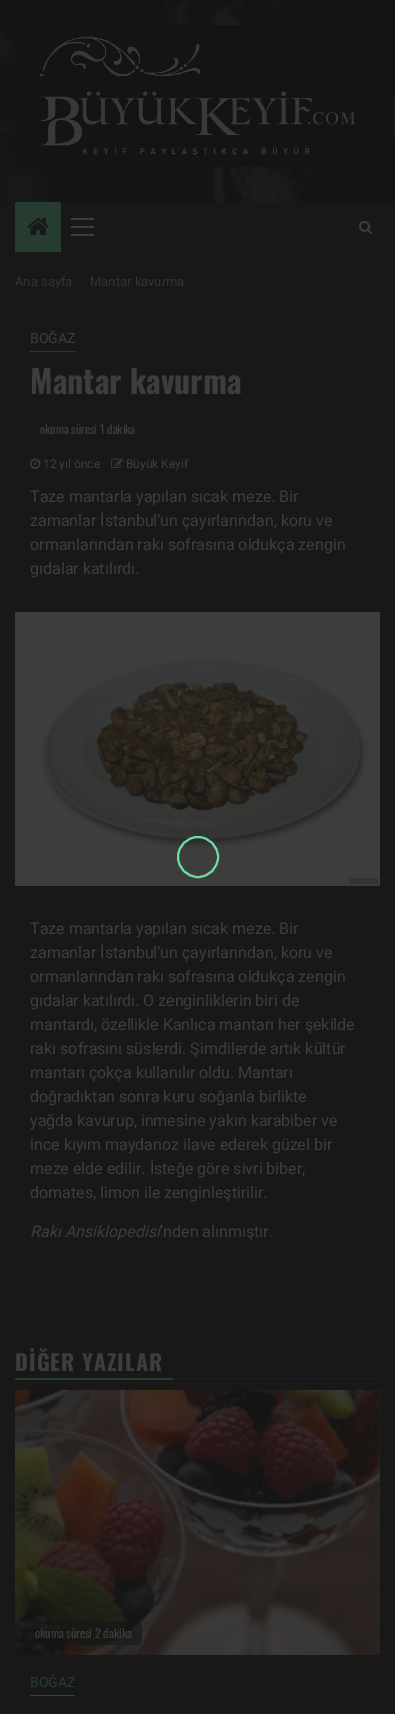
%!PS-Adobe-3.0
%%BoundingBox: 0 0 395 1714
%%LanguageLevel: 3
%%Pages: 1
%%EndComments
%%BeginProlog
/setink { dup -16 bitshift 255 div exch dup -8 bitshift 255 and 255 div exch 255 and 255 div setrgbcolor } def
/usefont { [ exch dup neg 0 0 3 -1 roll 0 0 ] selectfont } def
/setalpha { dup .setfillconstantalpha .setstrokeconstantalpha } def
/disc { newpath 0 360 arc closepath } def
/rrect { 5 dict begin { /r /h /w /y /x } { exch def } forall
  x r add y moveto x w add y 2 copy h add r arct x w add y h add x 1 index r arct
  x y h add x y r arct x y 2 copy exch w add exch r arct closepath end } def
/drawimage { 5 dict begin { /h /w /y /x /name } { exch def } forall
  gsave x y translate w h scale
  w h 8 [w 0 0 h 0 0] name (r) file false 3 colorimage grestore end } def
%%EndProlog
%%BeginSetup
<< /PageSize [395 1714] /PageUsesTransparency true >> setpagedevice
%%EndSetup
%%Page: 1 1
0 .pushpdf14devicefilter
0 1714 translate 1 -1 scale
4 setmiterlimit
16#181818 setink
0 0 395 1714 rectfill
(img1.raw) 0 0 395 202 drawimage
(img2.raw) 15 25 341 142 drawimage
16#273C31 setink
15 202 46 50 rectfill
(img3.raw) 27 217 22 18 drawimage
[
    [71 226 23 2 16#3D3D3D]
    [71 218 23 2 16#3D3D3D]
    [71 234 23 2 16#3D3D3D]
] { aload pop setink rectfill } forall
(img4.raw) 359 221 13 13 drawimage
/Roboto-Regular 13 usefont
16#323232 setink
15 286 moveto (Ana sayfa) show
90 286 moveto (Mantar kavurma) show
16#273C31 setink
30 351 45 1 rectfill
/Roboto-Regular 14 usefont
16#3D3D3D setink
30 343 moveto (BOĞAZ) show
/Oswald-Bold 32 usefont
30 394 moveto (Mantar kavurma) show
/Oswald-Regular 12 usefont
40 434 moveto (okuma süresi 1 dakika) show
(img5.raw) 30 458 11 11 drawimage
/Roboto-Regular 12 usefont
43 468 moveto (12 yıl önce) show
(img6.raw) 111 458 12 10 drawimage
126 468 moveto (Büyük Keyif) show
/Roboto-Regular 16 usefont
[
    [(Taze mantarla yapılan sıcak meze. Bir) 30 502]
    [(zamanlar İstanbul’un çayırlarından, koru ve) 30 526]
    [(ormanlarından rakı sofrasına oldukça zengin) 30 550]
    [(gıdalar katılırdı.) 30 574]
] { aload pop moveto show } forall
(img7.raw) 15 612 365 274 drawimage
[
    [(Taze mantarla yapılan sıcak meze. Bir) 30 934]
    [(zamanlar İstanbul’un çayırlarından, koru ve) 30 958]
    [(ormanlarından rakı sofrasına oldukça zengin) 30 982]
    [(gıdalar katılırdı. O zenginliklerin biri de) 30 1006]
    [(mantardı, özellikle Kanlıca mantarı her şekilde) 30 1030]
    [(rakı sofrasını süslerdi. Şimdilerde artık kültür) 30 1054]
    [(mantarı çokça kullanılır oldu. Mantarı) 30 1078]
    [(doğradıktan sonra kuru soğanla birlikte) 30 1102]
    [(yağda kavurup, inmesine yakın karabiber ve) 30 1126]
    [(ince kıyım maydanoz ilave ederek güzel bir) 30 1150]
    [(meze elde edilir. İsteğe göre sivri biber,) 30 1174]
    [(domates, limon ile zenginleştirilir.) 30 1198]
] { aload pop moveto show } forall
/Roboto-Italic 16 usefont
30 1237 moveto (Rakı Ansiklopedisi) show
/Roboto-Regular 16 usefont
160 1237 moveto (‘nden alınmıştır.) show
16#273C31 setink
15 1378 158 2 rectfill
/Oswald-Bold 22 usefont
16#3D3D3D setink
15 1371 moveto 1 0 (DİĞER YAZILAR) ashow
16#1C1C1C setink
173 1378 207 2 rectfill
(img8.raw) 15 1390 365 265 drawimage
0.5 setalpha
16#141414 setink
25 1621 117 24 5 rrect fill
/Oswald-Regular 12 usefont
1 setalpha
16#3D3D3D setink
35 1638 moveto (okuma süresi 2 dakika) show
30 1695 45 1 rectfill
/Roboto-Regular 14 usefont
16#273C31 setink
30 1687 moveto (BOĞAZ) show
0.84 setalpha
16#78FBB7 setink
2 setlinewidth
198 857 20 disc stroke
.poppdf14devicefilter showpage
%%EOF
